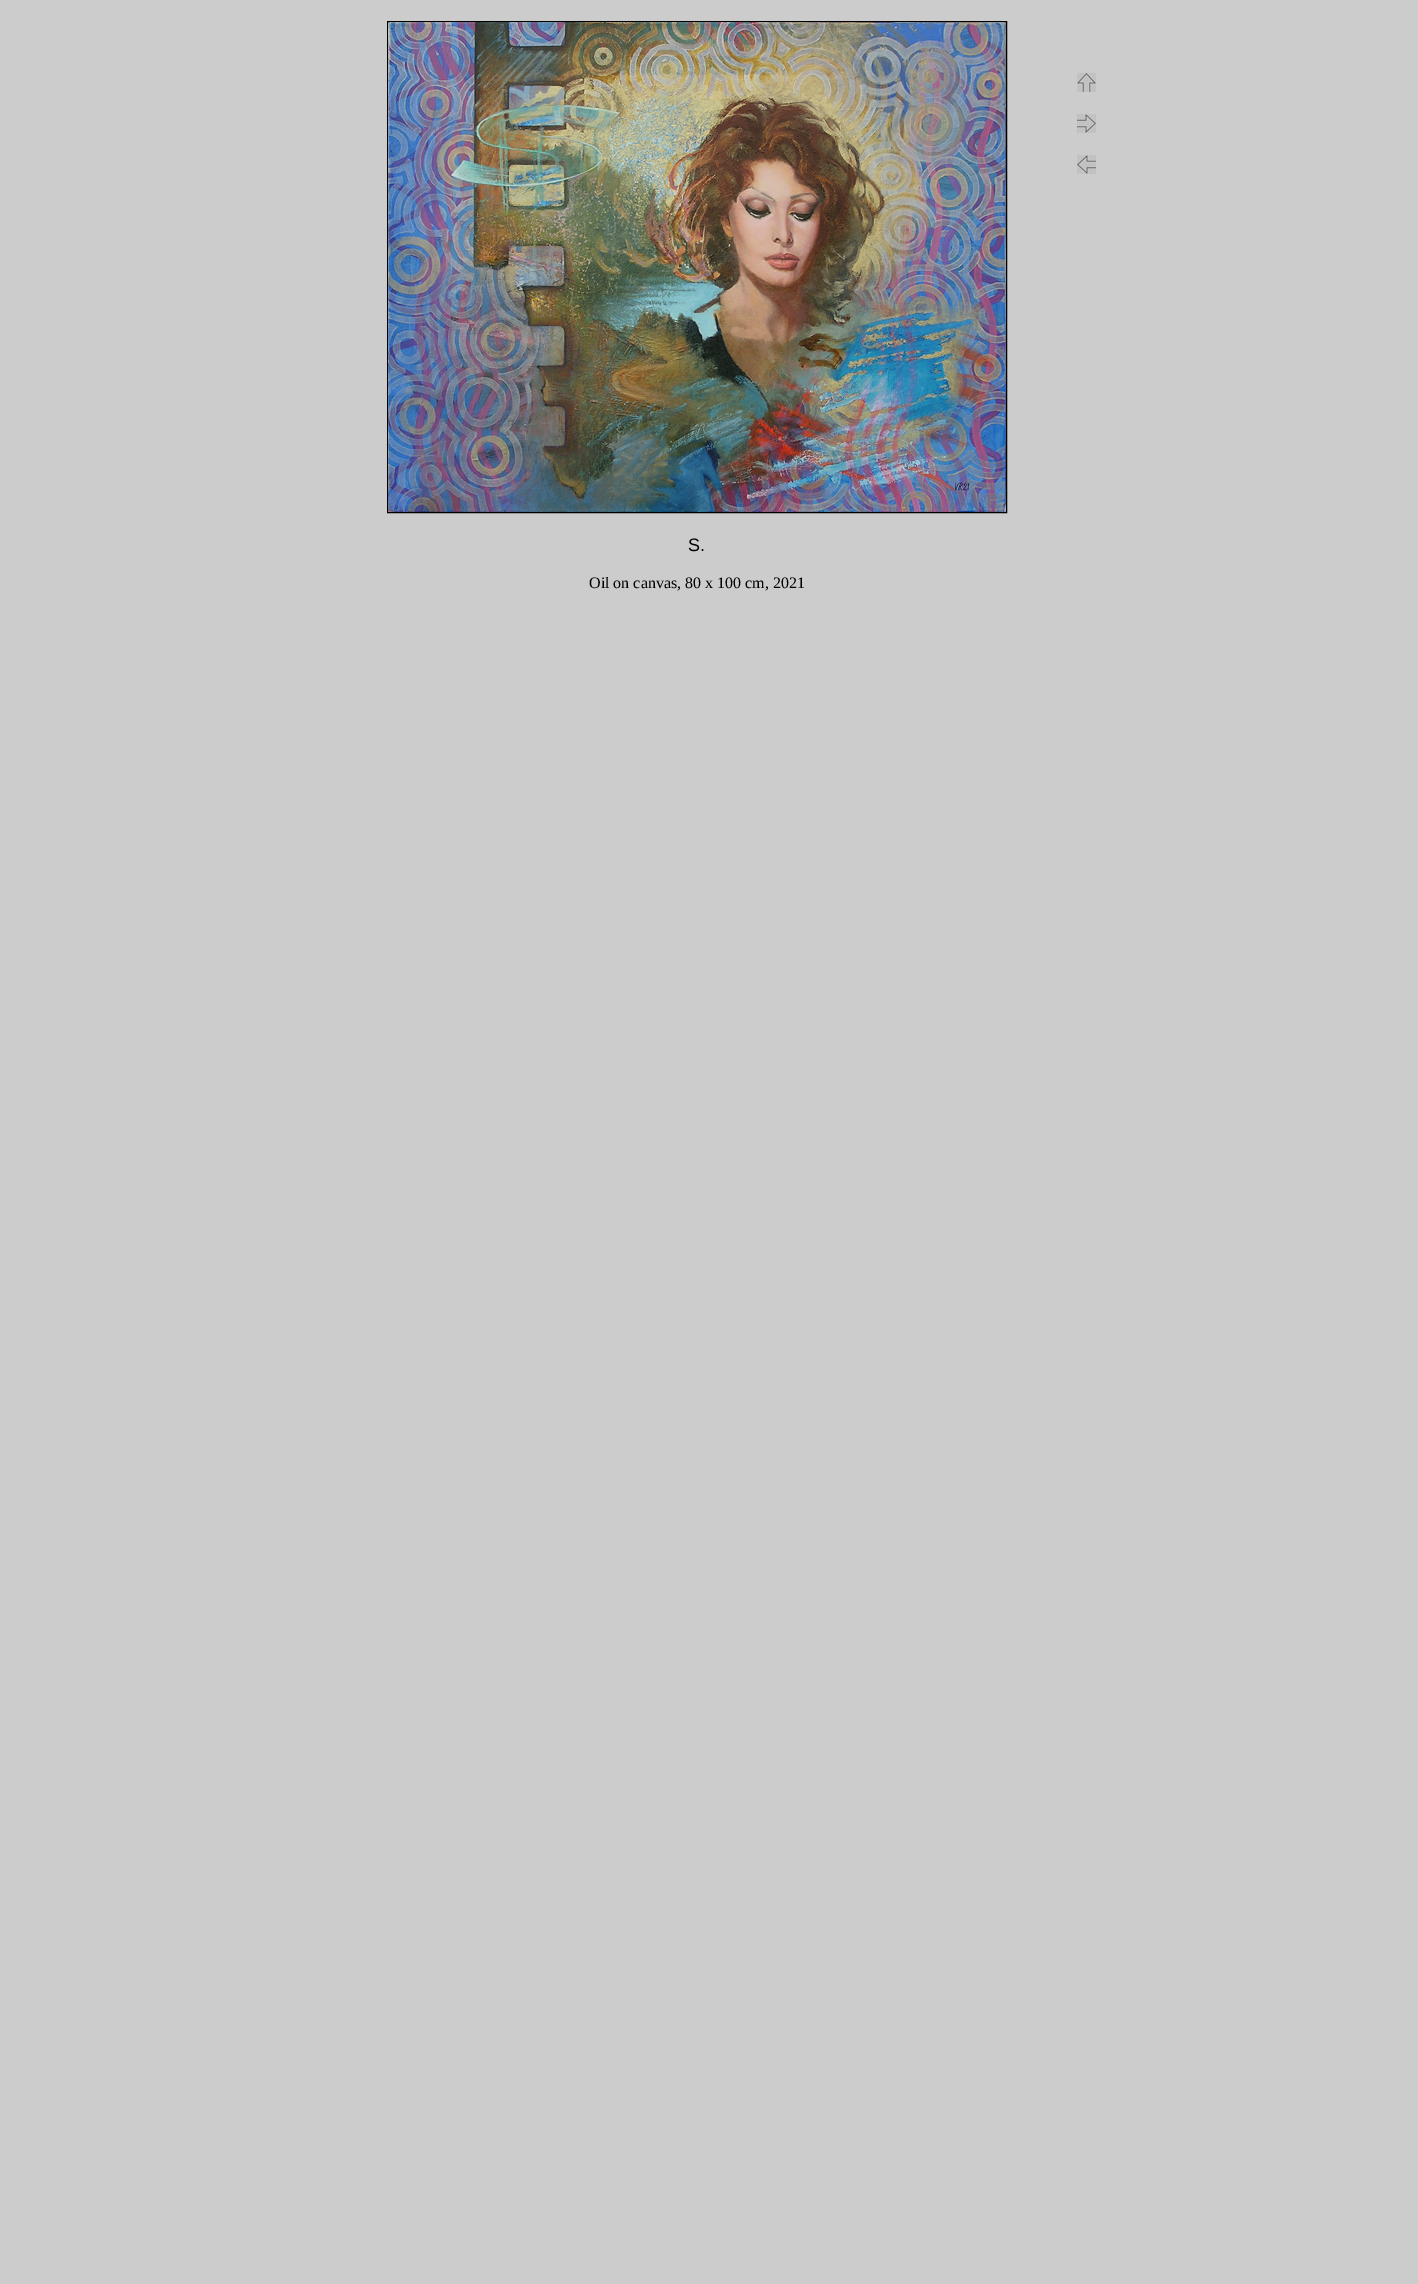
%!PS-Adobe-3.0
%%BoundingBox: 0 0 1418 2284
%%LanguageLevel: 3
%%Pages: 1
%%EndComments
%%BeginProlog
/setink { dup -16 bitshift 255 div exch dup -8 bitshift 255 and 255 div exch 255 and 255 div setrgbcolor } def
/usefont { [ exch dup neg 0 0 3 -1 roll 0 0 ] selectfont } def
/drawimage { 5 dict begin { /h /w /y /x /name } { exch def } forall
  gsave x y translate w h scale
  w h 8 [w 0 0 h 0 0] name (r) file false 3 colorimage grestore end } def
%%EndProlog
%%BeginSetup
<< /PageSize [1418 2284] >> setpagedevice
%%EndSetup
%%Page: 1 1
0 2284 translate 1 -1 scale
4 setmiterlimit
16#CCCCCC setink
0 0 1418 2284 rectfill
(img1.raw) 1077 73 19 19 drawimage
(img2.raw) 1077 114 19 19 drawimage
(img3.raw) 1077 155 19 19 drawimage
16#000000 setink
387.5 21.5 619 491 rectstroke
(img4.raw) 388 22 618 490 drawimage
/LiberationSans-Regular 18 usefont
688 551 moveto (S.) show
/LiberationSerif-Regular 16 usefont
589 588 moveto (Oil on canvas, 80 x 100 сm, 2021) show
showpage
%%EOF
